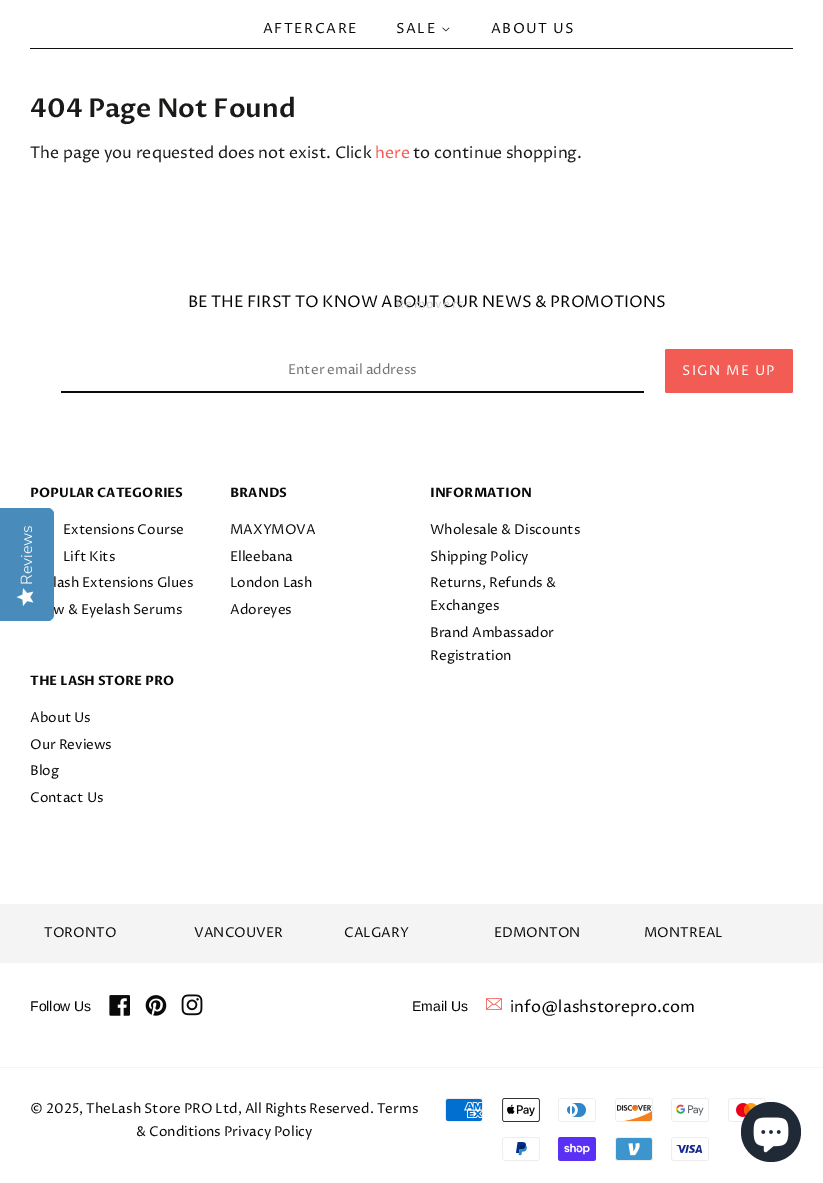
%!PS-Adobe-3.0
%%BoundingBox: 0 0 823 1183
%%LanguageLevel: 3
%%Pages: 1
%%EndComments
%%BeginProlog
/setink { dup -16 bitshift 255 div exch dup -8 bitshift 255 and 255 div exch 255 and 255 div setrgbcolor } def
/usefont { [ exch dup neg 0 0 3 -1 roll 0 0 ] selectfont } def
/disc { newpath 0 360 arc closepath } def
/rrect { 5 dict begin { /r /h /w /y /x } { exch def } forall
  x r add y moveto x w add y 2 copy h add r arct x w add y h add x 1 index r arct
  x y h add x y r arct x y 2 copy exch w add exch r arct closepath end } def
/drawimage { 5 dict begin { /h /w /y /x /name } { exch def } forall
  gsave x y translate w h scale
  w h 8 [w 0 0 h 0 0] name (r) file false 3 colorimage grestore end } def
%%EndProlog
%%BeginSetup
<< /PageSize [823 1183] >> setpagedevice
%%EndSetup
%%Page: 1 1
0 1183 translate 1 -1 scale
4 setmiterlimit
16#FFFFFF setink
0 0 823 1183 rectfill
16#111010 setink
30 48 763 1 rectfill
/ProzaLibre-Regular 14 usefont
16#0A0A0A setink
263 33 moveto 1.5 0 (AFTERCARE) ashow
396 33 moveto 1.5 0 (SALE) ashow
(img1.raw) 442 27 8 5 drawimage
/ProzaLibre-Regular 16 usefont
16#040404 setink
188 307 moveto (BE THE FIRST TO KNOW ABOUT OUR NEWS & PROMOTIONS) show
/ProzaLibre-Regular 12 usefont
16#CCCCCC setink
396 308 moveto 1.5 0 (Removers) ashow
/ProzaLibre-Regular 14 usefont
16#0A0A0A setink
491 33 moveto 1.5 0 (ABOUT US) ashow
/ProzaLibre-SemiBold 26 usefont
16#1A1A19 setink
30 117 moveto (404 Page Not Found) show
/ProzaLibre-Regular 16 usefont
30 158 moveto (The page you requested does not exist. Click) show
16#F25C54 setink
375 158 moveto (here) show
16#1A1A19 setink
413 158 moveto (to continue shopping.) show
/ProzaLibre-Regular 13.6 usefont
16#0A0A0A setink
53 614 moveto (w & Eyelash Serums) show
16#498CBC setink
0 621 moveto 0 508 lineto 48 508 lineto 51 508 54 511 54 514 curveto 54 615 lineto 54 618 51 621 48 621 curveto closepath fill
/NunitoSans-Light 16 usefont
16#FFFFFF setink
gsave 32 585 translate -90 rotate 0 0 moveto (Reviews) show grestore
(img2.raw) 16 588 18 18 drawimage
16#0A0A0A setink
61 391 583 2 rectfill
/ProzaLibre-Regular 13.6 usefont
16#757575 setink
288 374 moveto (Enter email address) show
16#F25C54 setink
665 349 128 44 2 rrect fill
16#FFFFFF setink
682 375 moveto 1.4 0 (SIGN ME UP) ashow
/ProzaLibre-Bold 13 usefont
16#0A0A0A setink
30 497 moveto (POPULAR CATEGORIES) show
/ProzaLibre-Regular 13.6 usefont
[
    [(Extensions Course) 63 534]
    [(Lift Kits) 63 561]
    [(lash Extensions Glues) 53 587]
] { aload pop moveto show } forall
/ProzaLibre-Bold 13 usefont
230 497 moveto (BRANDS) show
/ProzaLibre-Regular 13.6 usefont
[
    [(MAXYMOVA) 230 534]
    [(Elleebana) 230 561]
    [(London Lash) 230 587]
    [(Adoreyes) 230 614]
] { aload pop moveto show } forall
/ProzaLibre-Bold 13 usefont
430 497 moveto (INFORMATION) show
/ProzaLibre-Regular 13.6 usefont
[
    [(Wholesale & Discounts) 430 534]
    [(Shipping Policy) 430 561]
    [(Returns, Refunds &) 430 587]
    [(Exchanges) 430 610]
    [(Brand Ambassador) 430 637]
    [(Registration) 430 660]
] { aload pop moveto show } forall
/ProzaLibre-Bold 13 usefont
30 685 moveto (THE LASH STORE PRO) show
/ProzaLibre-Regular 13.6 usefont
[
    [(About Us) 30 722]
    [(Our Reviews) 30 749]
    [(Blog) 30 775]
    [(Contact Us) 30 802]
] { aload pop moveto show } forall
16#F4F4F4 setink
0 904 823 59 rectfill
16#0A0A0A setink
[
    [(TORONTO) 44 937]
    [(VANCOUVER) 194 937]
    [(CALGARY) 344 937]
    [(EDMONTON) 494 937]
    [(MONTREAL) 644 937]
] { aload pop moveto show } forall
/LiberationSans-Regular 14 usefont
16#040404 setink
30 1011 moveto (Follow Us) show
(img3.raw) 109 995 21 21 drawimage
(img4.raw) 145 995 22 21 drawimage
(img5.raw) 181 994 22 22 drawimage
412 1011 moveto (Email Us) show
(img6.raw) 486 998 16 12 drawimage
/ProzaLibre-Regular 16 usefont
510 1012 moveto (info@lashstorepro.com) show
16#F4F4F4 setink
0 1067 823 1 rectfill
/ProzaLibre-Regular 13.6 usefont
16#0A0A0A setink
30 1113 moveto (© 2025, TheLash Store PRO Ltd, All Rights Reserved. Terms) show
136 1136 moveto (& Conditions Privacy Policy) show
(img7.raw) 445 1098 38 24 drawimage
(img8.raw) 502 1098 38 24 drawimage
(img9.raw) 558 1098 38 24 drawimage
(img10.raw) 615 1098 38 24 drawimage
(img11.raw) 671 1098 38 24 drawimage
(img12.raw) 728 1098 38 24 drawimage
(img13.raw) 502 1137 38 24 drawimage
(img14.raw) 558 1137 38 24 drawimage
(img15.raw) 615 1137 38 24 drawimage
(img16.raw) 671 1137 38 24 drawimage
16#202A36 setink
771 1132 30 disc fill
(img17.raw) 753 1117 36 36 drawimage
showpage
%%EOF
